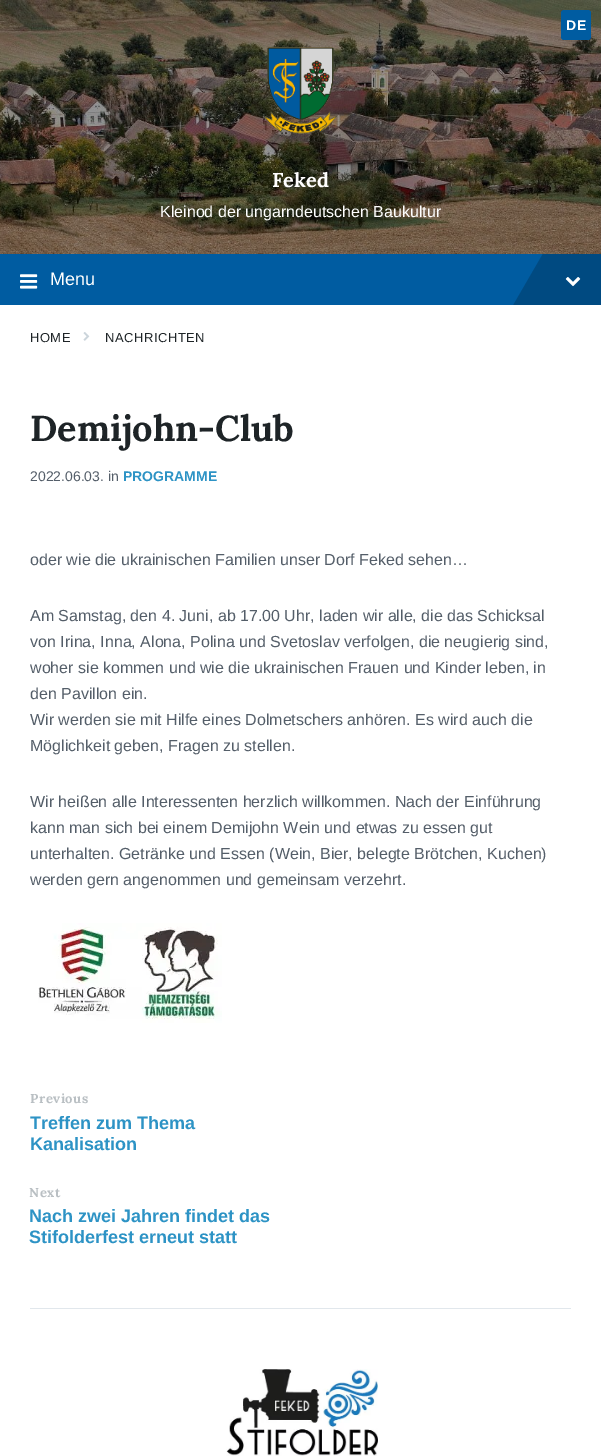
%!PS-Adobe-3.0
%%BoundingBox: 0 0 601 1456
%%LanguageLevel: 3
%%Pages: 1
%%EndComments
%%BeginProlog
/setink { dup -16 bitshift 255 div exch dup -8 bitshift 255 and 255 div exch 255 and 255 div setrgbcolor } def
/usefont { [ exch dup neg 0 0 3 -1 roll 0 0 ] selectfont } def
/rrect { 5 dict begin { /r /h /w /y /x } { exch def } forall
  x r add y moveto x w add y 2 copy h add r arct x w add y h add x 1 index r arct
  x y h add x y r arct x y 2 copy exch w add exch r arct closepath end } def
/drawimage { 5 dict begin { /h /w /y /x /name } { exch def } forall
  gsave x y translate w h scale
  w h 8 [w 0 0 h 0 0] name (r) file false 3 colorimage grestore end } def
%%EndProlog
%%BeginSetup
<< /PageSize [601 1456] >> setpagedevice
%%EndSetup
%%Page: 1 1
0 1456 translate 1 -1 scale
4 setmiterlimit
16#FFFFFF setink
0 0 601 1456 rectfill
(img1.raw) 0 0 601 254 drawimage
16#005CA1 setink
561 10 30 30 3 rrect fill
/LiberationSans-Bold 14 usefont
16#FFFFFF setink
566 30 moveto 1 0 (DE) ashow
(img2.raw) 264 47 73 87 drawimage
/Lora-Bold 20 usefont
272 187 moveto (Feked) show
/LiberationSans-Regular 16 usefont
160 217 moveto (Kleinod der ungarndeutschen Baukultur) show
16#005CA1 setink
0 254 543 51 rectfill
(img3.raw) 20 274 18 15 drawimage
/LiberationSans-Regular 18 usefont
16#FFFFFF setink
50 285 moveto (Menu) show
gsave
0 254 601 51 rectclip
16#004A81 setink
562 221 moveto 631 261 lineto 580 349 lineto 511 309 lineto closepath fill
grestore
(img4.raw) 565 277 16 10 drawimage
/LiberationSans-Regular 13 usefont
16#1E2427 setink
30 342 moveto 0.5 0 (HOME) ashow
(img5.raw) 83 332 7 9 drawimage
105 342 moveto 0.5 0 (NACHRICHTEN) ashow
/Lora-Bold 36 usefont
30 441 moveto (Demijohn-Club) show
/LiberationSans-Regular 14 usefont
16#545E69 setink
30 481 moveto (2022.06.03. in) show
/LiberationSans-Bold 14 usefont
16#2D93C5 setink
123 481 moveto (PROGRAMME) show
/LiberationSans-Regular 16 usefont
16#545E69 setink
[
    [(oder wie die ukrainischen Familien unser Dorf Feked sehen…) 30 565]
    [(Am Samstag, den 4. Juni, ab 17.00 Uhr, laden wir alle, die das Schicksal) 30 621]
    [(von Irina, Inna, Alona, Polina und Svetoslav verfolgen, die neugierig sind,) 30 647]
    [(woher sie kommen und wie die ukrainischen Frauen und Kinder leben, in) 30 673]
    [(den Pavillon ein.) 30 699]
    [(Wir werden sie mit Hilfe eines Dolmetschers anhören. Es wird auch die) 30 725]
    [(Möglichkeit geben, Fragen zu stellen.) 30 751]
    [(Wir heißen alle Interessenten herzlich willkommen. Nach der Einführung) 30 807]
    [(kann man sich bei einem Demijohn Wein und etwas zu essen gut) 30 833]
    [(unterhalten. Getränke und Essen \(Wein, Bier, belegte Brötchen, Kuchen\)) 30 859]
    [(werden gern angenommen und gemeinsam verzehrt.) 30 885]
] { aload pop moveto show } forall
(img6.raw) 38 923 184 100 drawimage
/Lora-Bold 13 usefont
16#B9BFC3 setink
30 1103 moveto 0.5 0 (Previous) ashow
/LiberationSans-Bold 18 usefont
16#2D93C5 setink
30 1129 moveto (Treffen zum Thema) show
30 1150 moveto (Kanalisation) show
/Lora-Bold 13 usefont
16#B9BFC3 setink
29 1197 moveto 0.5 0 (Next) ashow
/LiberationSans-Bold 18 usefont
16#2D93C5 setink
29 1222 moveto (Nach zwei Jahren findet das) show
29 1243 moveto (Stifolderfest erneut statt) show
16#E1E7EC setink
30 1308 541 1 rectfill
(img7.raw) 226 1369 152 87 drawimage
showpage
%%EOF
